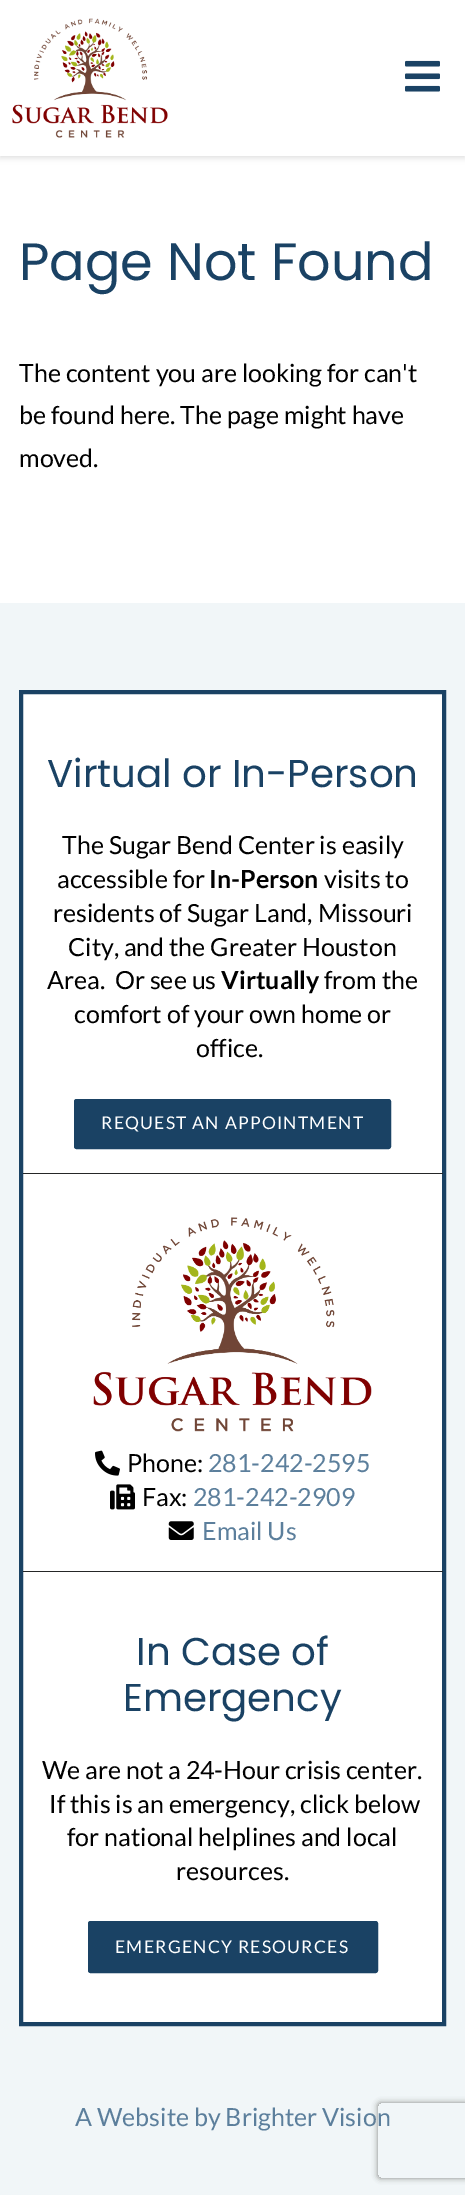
%!PS-Adobe-3.0
%%BoundingBox: 0 0 465 2195
%%LanguageLevel: 3
%%Pages: 1
%%EndComments
%%BeginProlog
/setink { dup -16 bitshift 255 div exch dup -8 bitshift 255 and 255 div exch 255 and 255 div setrgbcolor } def
/usefont { [ exch dup neg 0 0 3 -1 roll 0 0 ] selectfont } def
/setalpha { dup .setfillconstantalpha .setstrokeconstantalpha } def
/rrect { 5 dict begin { /r /h /w /y /x } { exch def } forall
  x r add y moveto x w add y 2 copy h add r arct x w add y h add x 1 index r arct
  x y h add x y r arct x y 2 copy exch w add exch r arct closepath end } def
/softshadow { 12 dict begin { /a /b /q /h /w /y /x } { exch def } forall gsave /was 0 def
  9 -2 -9 { dup b mul 4 div /e exch def 1 sub .425 mul 2.718 exch exp 1 add a .99 .min exch div /now exch def
    1 1 now sub 1 was sub div sub setalpha /was now def
    w h .min e 2 mul add 0 gt { x e sub y e sub w e 2 mul add h e 2 mul add
      q e add b .6 mul add w h .min 2 div e add .min 0 .max rrect fill } if } for grestore end } def
/drawimage { 5 dict begin { /h /w /y /x /name } { exch def } forall
  gsave x y translate w h scale
  w h 8 [w 0 0 h 0 0] name (r) file false 3 colorimage grestore end } def
%%EndProlog
%%BeginSetup
<< /PageSize [465 2195] /PageUsesTransparency true >> setpagedevice
%%EndSetup
%%Page: 1 1
0 .pushpdf14devicefilter
0 2195 translate 1 -1 scale
4 setmiterlimit
16#F1F6F8 setink
0 0 465 2195 rectfill
16#FFFFFF setink
0 156 465 447 rectfill
16#000000 setink
0 1 465 157 0 3 0.12 softshadow
16#FFFFFF setink
0 0 465 156 rectfill
(img1.raw) 12 18 156 120 drawimage
(img2.raw) 405 60 35 32 drawimage
/Poppins-Regular 52.5 usefont
16#1A4264 setink
19 280 moveto (Page Not Found) show
/Lato-Regular 25 usefont
16#000000 setink
[
    [(The content you are looking for can't) 19 382]
    [(be found here. The page might have) 19 424]
    [(moved.) 19 467]
] { aload pop moveto show } forall
16#FFFFFF setink
21 692 moveto 444 692 lineto 444 2024 lineto 21 2024 lineto closepath gsave fill grestore
16#1A4264 setink
4 setlinewidth
stroke
/Poppins-Regular 38.75 usefont
47 787 moveto (Virtual or In-Person) show
/Lato-Regular 25 usefont
16#000000 setink
62 854 moveto (The Sugar Bend Center is easily) show
57 888 moveto (accessible for) show
/Lato-Bold 25 usefont
209 888 moveto (In-Person) show
/Lato-Regular 25 usefont
[
    [(visits to) 324 888]
    [(residents of Sugar Land, Missouri) 53 922]
    [(City, and the Greater Houston) 68 956]
    [(Area.  Or see us) 47 989]
] { aload pop moveto show } forall
/Lato-Bold 25 usefont
221 989 moveto (Virtually) show
/Lato-Regular 25 usefont
[
    [(from the) 324 989]
    [(comfort of your own home or) 74 1023]
    [(office.) 196 1057]
] { aload pop moveto show } forall
16#1A4264 setink
75.5 1100.5 314 47 1 rrect gsave fill grestore
3 setlinewidth
stroke
/Lato-Regular 17.5 usefont
16#FFFFFF setink
101 1129 moveto 1.25 0 (REQUEST AN APPOINTMENT) ashow
16#252627 setink
23 1173 420 1 rectfill
(img3.raw) 93 1217 279 215 drawimage
(img4.raw) 95 1450 25 26 drawimage
/Lato-Regular 25 usefont
16#000000 setink
127 1472 moveto (Phone:) show
16#5C7F9C setink
208 1472 moveto (281-242-2595) show
(img5.raw) 110 1484 25 26 drawimage
16#000000 setink
142 1506 moveto (Fax:) show
16#5C7F9C setink
193 1506 moveto (281-242-2909) show
(img6.raw) 168 1521 26 19 drawimage
202 1540 moveto (Email Us) show
16#252627 setink
23 1571 420 1 rectfill
/Poppins-Regular 38.75 usefont
16#1A4264 setink
136 1665 moveto (In Case of) show
123 1711 moveto (Emergency) show
/Lato-Regular 25 usefont
16#000000 setink
[
    [(We are not a 24-Hour crisis center.) 42 1779]
    [(If this is an emergency, click below) 49 1813]
    [(for national helplines and local) 67 1846]
    [(resources.) 176 1880]
] { aload pop moveto show } forall
16#1A4264 setink
89.5 1922.5 287 49 1 rrect gsave fill grestore
stroke
/Lato-Regular 17.5 usefont
16#FFFFFF setink
115 1953 moveto 1.25 0 (EMERGENCY RESOURCES) ashow
/Lato-Regular 25 usefont
16#5C7F9C setink
75 2126 moveto (A Website by Brighter Vision) show
gsave
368 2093 moveto 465 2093 lineto 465 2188 lineto 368 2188 lineto closepath 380.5 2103 moveto 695.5 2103 lineto 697 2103 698 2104 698 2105.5 curveto 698 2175.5 lineto 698 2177 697 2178 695.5 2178 curveto 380.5 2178 lineto 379 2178 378 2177 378 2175.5 curveto 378 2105.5 lineto 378 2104 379 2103 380.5 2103 curveto closepath eoclip newpath
16#808080 setink
378 2103 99 75 2.5 3 1 softshadow
grestore
.poppdf14devicefilter showpage
%%EOF
